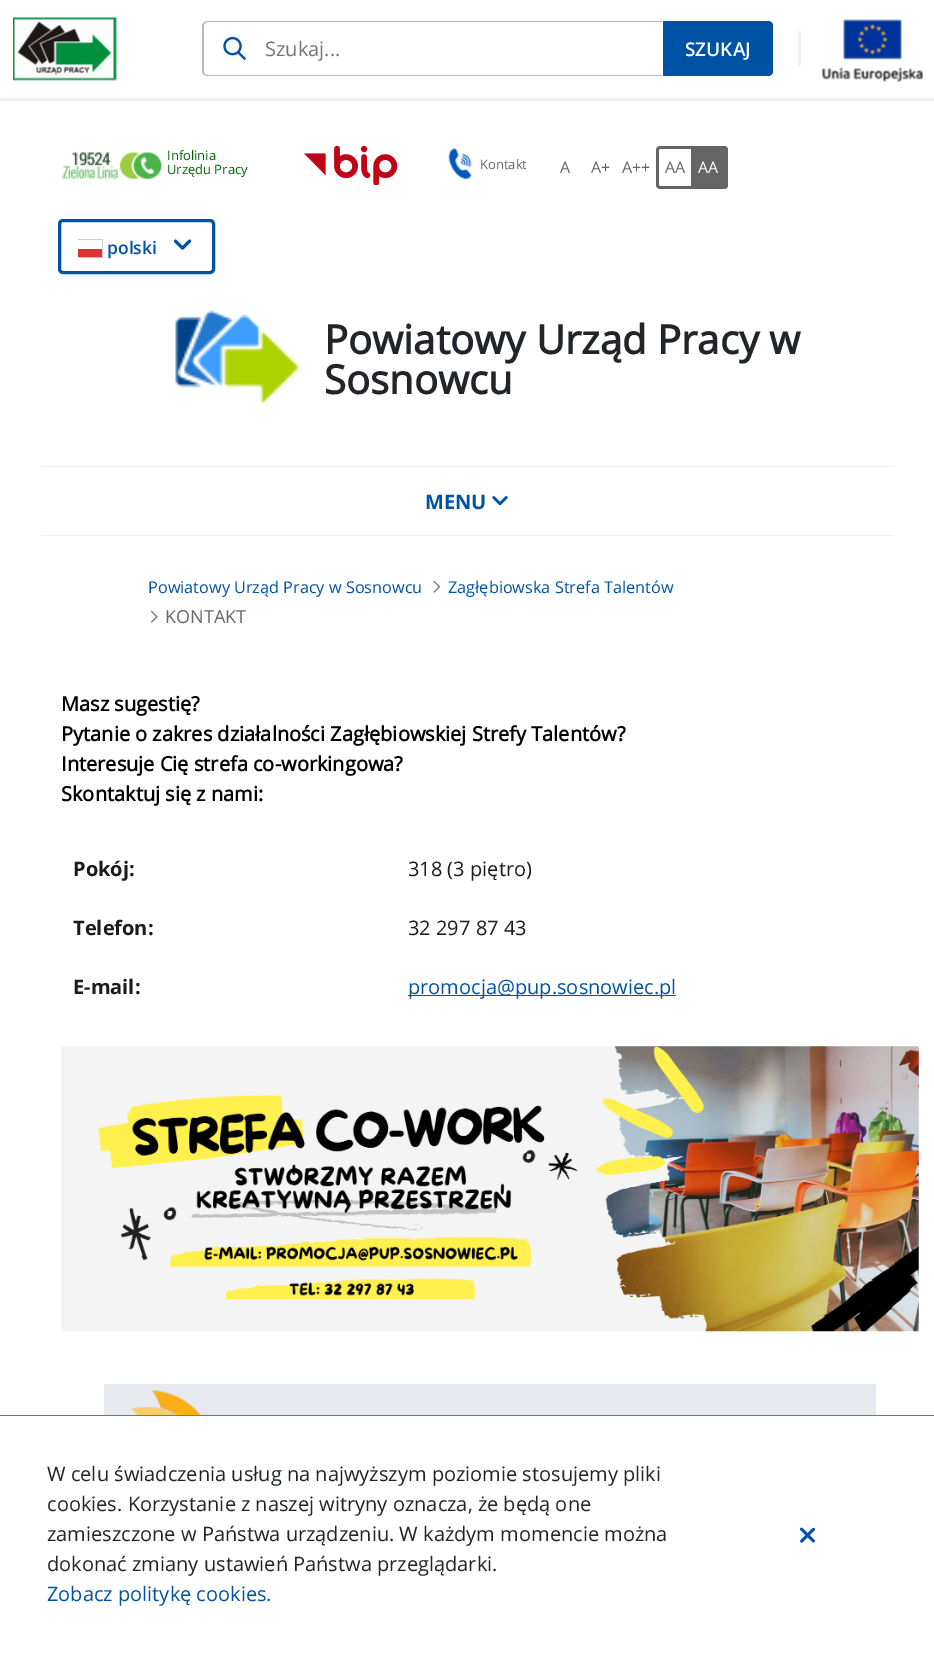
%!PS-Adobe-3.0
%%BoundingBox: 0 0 934 1668
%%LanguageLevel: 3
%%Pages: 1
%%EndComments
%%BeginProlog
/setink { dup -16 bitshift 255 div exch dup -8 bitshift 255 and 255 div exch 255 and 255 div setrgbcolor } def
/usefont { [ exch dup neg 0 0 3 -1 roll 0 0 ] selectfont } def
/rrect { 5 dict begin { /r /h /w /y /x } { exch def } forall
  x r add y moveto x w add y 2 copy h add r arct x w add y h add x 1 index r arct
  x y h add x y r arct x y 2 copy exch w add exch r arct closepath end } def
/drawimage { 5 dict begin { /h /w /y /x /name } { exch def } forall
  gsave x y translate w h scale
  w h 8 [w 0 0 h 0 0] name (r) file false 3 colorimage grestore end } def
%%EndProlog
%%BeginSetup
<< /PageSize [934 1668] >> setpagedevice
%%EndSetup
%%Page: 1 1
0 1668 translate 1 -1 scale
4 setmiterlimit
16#FFFFFF setink
0 0 934 1668 rectfill
16#F1F1F1 setink
0 98 934 3 rectfill
(img1.raw) 13 17 104 64 drawimage
(img2.raw) 223 36 24 25 drawimage
16#B7B7B7 setink
208 21 moveto 662 21 lineto 662 76 lineto 208 76 lineto 205 76 202 74 202 71 curveto 202 26 lineto 202 23 205 21 208 21 curveto closepath 208 22 moveto 662 22 lineto 662 75 lineto 208 75 lineto 205 75 204 73 204 71 curveto 204 26 lineto 204 24 205 22 208 22 curveto closepath eofill
/OpenSans-Regular 20 usefont
16#767676 setink
265 56 moveto (Szukaj...) show
16#0052A5 setink
663 21 moveto 768 21 lineto 771 21 773 23 773 26 curveto 773 71 lineto 773 74 771 76 768 76 curveto 663 76 lineto closepath fill
/OpenSans-SemiBold 19 usefont
16#FFFFFF setink
685 56 moveto (SZUKAJ) show
16#F1F1F1 setink
798 31 3 35 rectfill
(img3.raw) 821 19 103 63 drawimage
(img4.raw) 62 152 100 28 drawimage
/OpenSans-Regular 13 usefont
16#016501 setink
167 160 moveto (Infolinia) show
167 174 moveto (Urzędu Pracy) show
(img5.raw) 304 145 94 40 drawimage
(img6.raw) 448 148 24 31 drawimage
16#656565 setink
480 169 moveto (Kontakt) show
/OpenSans-Regular 16 usefont
[
    [(A) 560 173]
    [(A+) 591 173]
    [(A++) 622 173]
] { aload pop moveto show } forall
660 146 moveto 691 146 lineto 691 189 lineto 660 189 lineto 658 189 656 187 656 185 curveto 656 150 lineto 656 148 658 146 660 146 curveto closepath 660 149 moveto 691 149 lineto 691 186 lineto 660 186 lineto 659 186 659 186 659 185 curveto 659 150 lineto 659 149 659 149 660 149 curveto closepath eofill
665 173 moveto (AA) show
691 146 moveto 724 146 lineto 726 146 728 148 728 150 curveto 728 185 lineto 728 187 726 189 724 189 curveto 691 189 lineto closepath fill
691 146 moveto 724 146 lineto 726 146 728 148 728 150 curveto 728 185 lineto 728 187 726 189 724 189 curveto 691 189 lineto closepath 691 149 moveto 724 149 lineto 724 149 725 149 725 150 curveto 725 185 lineto 725 186 724 186 724 186 curveto 691 186 lineto closepath eofill
16#FFFFFF setink
698 173 moveto (AA) show
16#0052A5 setink
3 setlinewidth
59.5 220.5 154 52 3.5 rrect stroke
/OpenSans-SemiBold 17.5 usefont
107 254 moveto (polski) show
[
    [78 239 25 19 16#C0CFD8]
    [78 240 24 9 16#FFFFFF]
    [78 249 24 8 16#E03232]
] { aload pop setink rectfill } forall
(img7.raw) 173 239 19 11 drawimage
(img8.raw) 175 310 124 93 drawimage
/OpenSans-Bold 40 usefont
16#212529 setink
324 354 moveto (Powiatowy Urząd Pracy w) show
324 394 moveto (Sosnowcu) show
16#F1F1F1 setink
41 466 853 1 rectfill
41 535 853 1 rectfill
/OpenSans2-Bold 20 usefont
16#0052A5 setink
425 509 moveto (MENU) show
(img9.raw) 492 496 16 10 drawimage
/OpenSans-Regular 16.25 usefont
148 593 moveto (Powiatowy Urząd Pracy w Sosnowcu) show
(img10.raw) 433 580 7 13 drawimage
448 593 moveto (Zagłębiowska Strefa Talentów) show
(img11.raw) 151 610 7 13 drawimage
/OpenSans-Regular 18 usefont
16#656565 setink
165 623 moveto (KONTAKT) show
/OpenSans-Bold 20 usefont
16#000000 setink
[
    [(Masz sugestię?) 61 711]
    [(Pytanie o zakres działalności Zagłębiowskiej Strefy Talentów?) 61 741]
    [(Interesuje Cię strefa co-workingowa?) 61 771]
    [(Skontaktuj się z nami:) 61 801]
] { aload pop moveto show } forall
/OpenSans2-Bold 20 usefont
16#1B1B1B setink
73 876 moveto (Pokój:) show
/OpenSans-Regular 20 usefont
408 876 moveto (318 \(3 piętro\)) show
/OpenSans2-Bold 20 usefont
73 935 moveto (Telefon:) show
/OpenSans-Regular 20 usefont
408 935 moveto (32 297 87 43) show
/OpenSans2-Bold 20 usefont
73 994 moveto (E-mail:) show
16#0052A5 setink
408 995 268 1 rectfill
/OpenSans-Regular 20 usefont
408 994 moveto (promocja@pup.sosnowiec.pl) show
(img12.raw) 61 1046 858 286 drawimage
16#E6E9EE setink
104 1384 772 31 rectfill
(img13.raw) 131 1390 71 25 drawimage
16#767676 setink
0 1415 934 1 rectfill
16#212529 setink
[
    [(W celu świadczenia usług na najwyższym poziomie stosujemy pliki) 47 1481]
    [(cookies. Korzystanie z naszej witryny oznacza, że będą one) 47 1511]
    [(zamieszczone w Państwa urządzeniu. W każdym momencie można) 47 1541]
    [(dokonać zmiany ustawień Państwa przeglądarki.) 47 1571]
] { aload pop moveto show } forall
16#0052A5 setink
47 1601 moveto (Zobacz politykę cookies.) show
(img14.raw) 800 1527 16 16 drawimage
showpage
%%EOF
